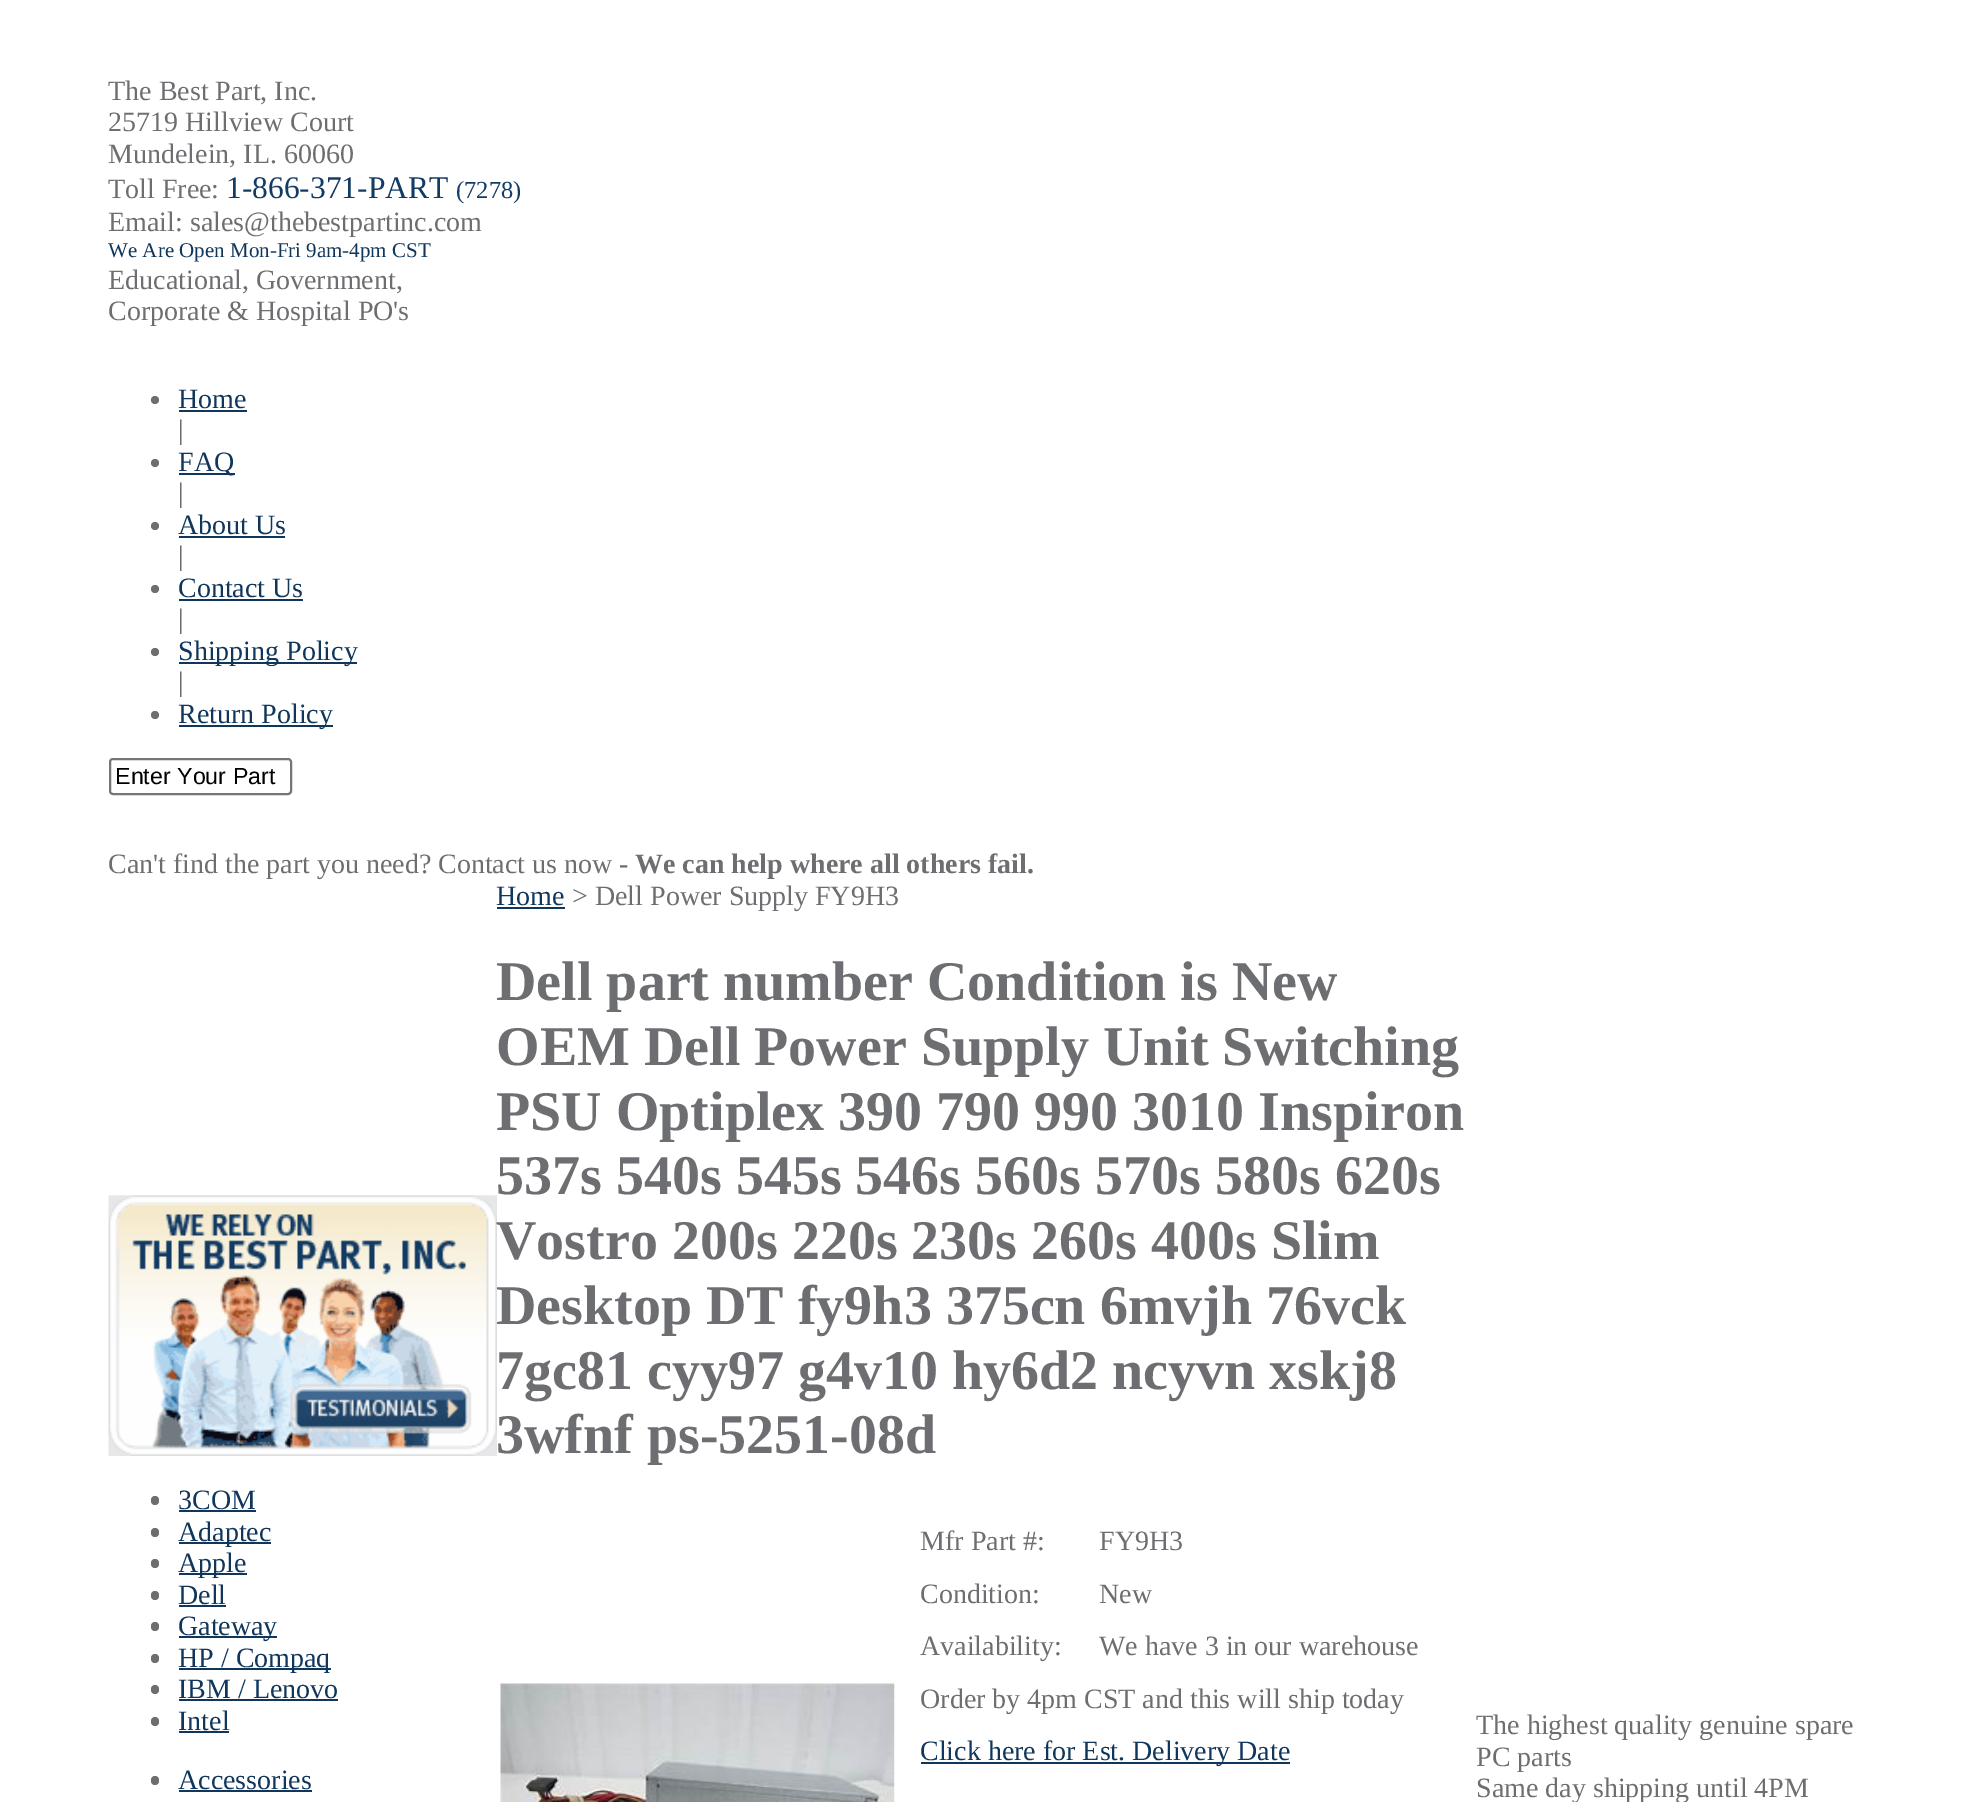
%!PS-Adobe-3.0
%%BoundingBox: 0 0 1972 1802
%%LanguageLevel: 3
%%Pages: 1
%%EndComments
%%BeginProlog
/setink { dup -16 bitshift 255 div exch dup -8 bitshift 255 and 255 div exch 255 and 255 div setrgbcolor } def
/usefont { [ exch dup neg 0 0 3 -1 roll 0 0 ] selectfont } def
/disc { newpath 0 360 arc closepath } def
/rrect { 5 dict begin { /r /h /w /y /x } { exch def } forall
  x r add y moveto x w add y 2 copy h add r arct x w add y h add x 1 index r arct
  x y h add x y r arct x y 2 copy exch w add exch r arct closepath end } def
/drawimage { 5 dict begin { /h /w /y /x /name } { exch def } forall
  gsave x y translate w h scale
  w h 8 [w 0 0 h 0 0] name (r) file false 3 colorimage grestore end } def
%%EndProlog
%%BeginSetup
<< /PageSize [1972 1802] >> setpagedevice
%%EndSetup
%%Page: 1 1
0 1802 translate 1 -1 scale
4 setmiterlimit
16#FFFFFF setink
0 0 1972 1802 rectfill
/LiberationSerif-Regular 28 usefont
16#6D6E71 setink
[
    [(The Best Part, Inc.) 108 100]
    [(25719 Hillview Court) 108 131]
    [(Mundelein, IL. 60060) 108 163]
    [(Toll Free:) 108 198]
] { aload pop moveto show } forall
/LiberationSerif-Regular 31.5 usefont
16#133C65 setink
226 198 moveto (1-866-371-PART) show
/LiberationSerif-Regular 24.5 usefont
456 198 moveto (\(7278\)) show
/LiberationSerif-Regular 28 usefont
16#6D6E71 setink
108 231 moveto (Email: sales@thebestpartinc.com) show
/LiberationSerif-Regular 21 usefont
16#10365C setink
108 257 moveto (We Are Open Mon-Fri 9am-4pm CST) show
/LiberationSerif-Regular 28 usefont
16#6D6E71 setink
108 289 moveto (Educational, Government,) show
108 320 moveto (Corporate & Hospital PO's) show
155 400 4 disc fill
16#10365C setink
178 408 moveto (Home) show
179 410 68 2 rectfill
16#6D6E71 setink
178 439 moveto (|) show
155 463 4 disc fill
16#10365C setink
179 473 56 2 rectfill
178 471 moveto (FAQ) show
16#6D6E71 setink
178 502 moveto (|) show
155 526 4 disc fill
16#10365C setink
178 534 moveto (About Us) show
179 536 106 2 rectfill
16#6D6E71 setink
178 565 moveto (|) show
155 589 4 disc fill
16#10365C setink
178 597 moveto (Contact Us) show
179 599 124 2 rectfill
16#6D6E71 setink
178 628 moveto (|) show
155 652 4 disc fill
16#10365C setink
179 662 178 2 rectfill
178 660 moveto (Shipping Policy) show
16#6D6E71 setink
178 691 moveto (|) show
155 715 4 disc fill
16#10365C setink
179 725 154 2 rectfill
178 723 moveto (Return Policy) show
16#767676 setink
2 setlinewidth
110 759 181 35 3 rrect stroke
/LiberationSans-Regular 23.25 usefont
16#000000 setink
115 784 moveto (Enter Your Part) show
/LiberationSerif-Regular 28 usefont
16#6D6E71 setink
108 873 moveto (Can't find the part you need? Contact us now -) show
/LiberationSerif-Bold 28 usefont
635 873 moveto (We can help where all others fail.) show
(img1.raw) 108 1195 389 261 drawimage
151 1496 8 9 4 rrect fill
/LiberationSerif-Regular 28 usefont
16#10365C setink
178 1509 moveto (3COM) show
179 1510 77 2 rectfill
16#6D6E71 setink
151 1528 8 9 4 rrect fill
16#10365C setink
179 1542 92 2 rectfill
178 1541 moveto (Adaptec) show
16#6D6E71 setink
151 1559 8 9 4 rrect fill
16#10365C setink
179 1573 68 2 rectfill
178 1572 moveto (Apple) show
16#6D6E71 setink
151 1591 8 9 4 rrect fill
16#10365C setink
178 1604 moveto (Dell) show
179 1605 47 2 rectfill
16#6D6E71 setink
151 1622 8 9 4 rrect fill
16#10365C setink
179 1636 98 2 rectfill
178 1635 moveto (Gateway) show
16#6D6E71 setink
151 1654 8 9 4 rrect fill
16#10365C setink
179 1668 152 2 rectfill
178 1667 moveto (HP / Compaq) show
16#6D6E71 setink
151 1685 8 9 4 rrect fill
16#10365C setink
178 1698 moveto (IBM / Lenovo) show
179 1699 159 2 rectfill
16#6D6E71 setink
151 1717 8 9 4 rrect fill
16#10365C setink
178 1730 moveto (Intel) show
179 1731 50 2 rectfill
16#6D6E71 setink
151 1776 8 9 4 rrect fill
16#10365C setink
178 1789 moveto (Accessories) show
179 1790 133 2 rectfill
496 905 moveto (Home) show
497 907 68 2 rectfill
16#6D6E71 setink
572 905 moveto (> Dell Power Supply FY9H3) show
/LiberationSerif-Bold 56 usefont
[
    [(Dell part number Condition is New) 496 1000]
    [(OEM Dell Power Supply Unit Switching) 496 1065]
    [(PSU Optiplex 390 790 990 3010 Inspiron) 496 1130]
    [(537s 540s 545s 546s 560s 570s 580s 620s) 496 1194]
    [(Vostro 200s 220s 230s 260s 400s Slim) 496 1259]
    [(Desktop DT fy9h3 375cn 6mvjh 76vck) 496 1324]
    [(7gc81 cyy97 g4v10 hy6d2 ncyvn xskj8) 496 1389]
    [(3wfnf ps-5251-08d) 496 1453]
] { aload pop moveto show } forall
(img2.raw) 500 1683 395 119 drawimage
/LiberationSerif-Regular 28 usefont
[
    [(Mfr Part #:) 920 1550]
    [(FY9H3) 1099 1550]
    [(Condition:) 920 1603]
    [(New) 1099 1603]
    [(Availability:) 920 1655]
    [(We have 3 in our warehouse) 1099 1655]
    [(Order by 4pm CST and this will ship today) 920 1708]
] { aload pop moveto show } forall
16#10365C setink
921 1762 369 2 rectfill
920 1760 moveto (Click here for Est. Delivery Date) show
16#6D6E71 setink
[
    [(The highest quality genuine spare) 1476 1734]
    [(PC parts) 1476 1766]
    [(Same day shipping until 4PM) 1476 1797]
] { aload pop moveto show } forall
showpage
%%EOF
